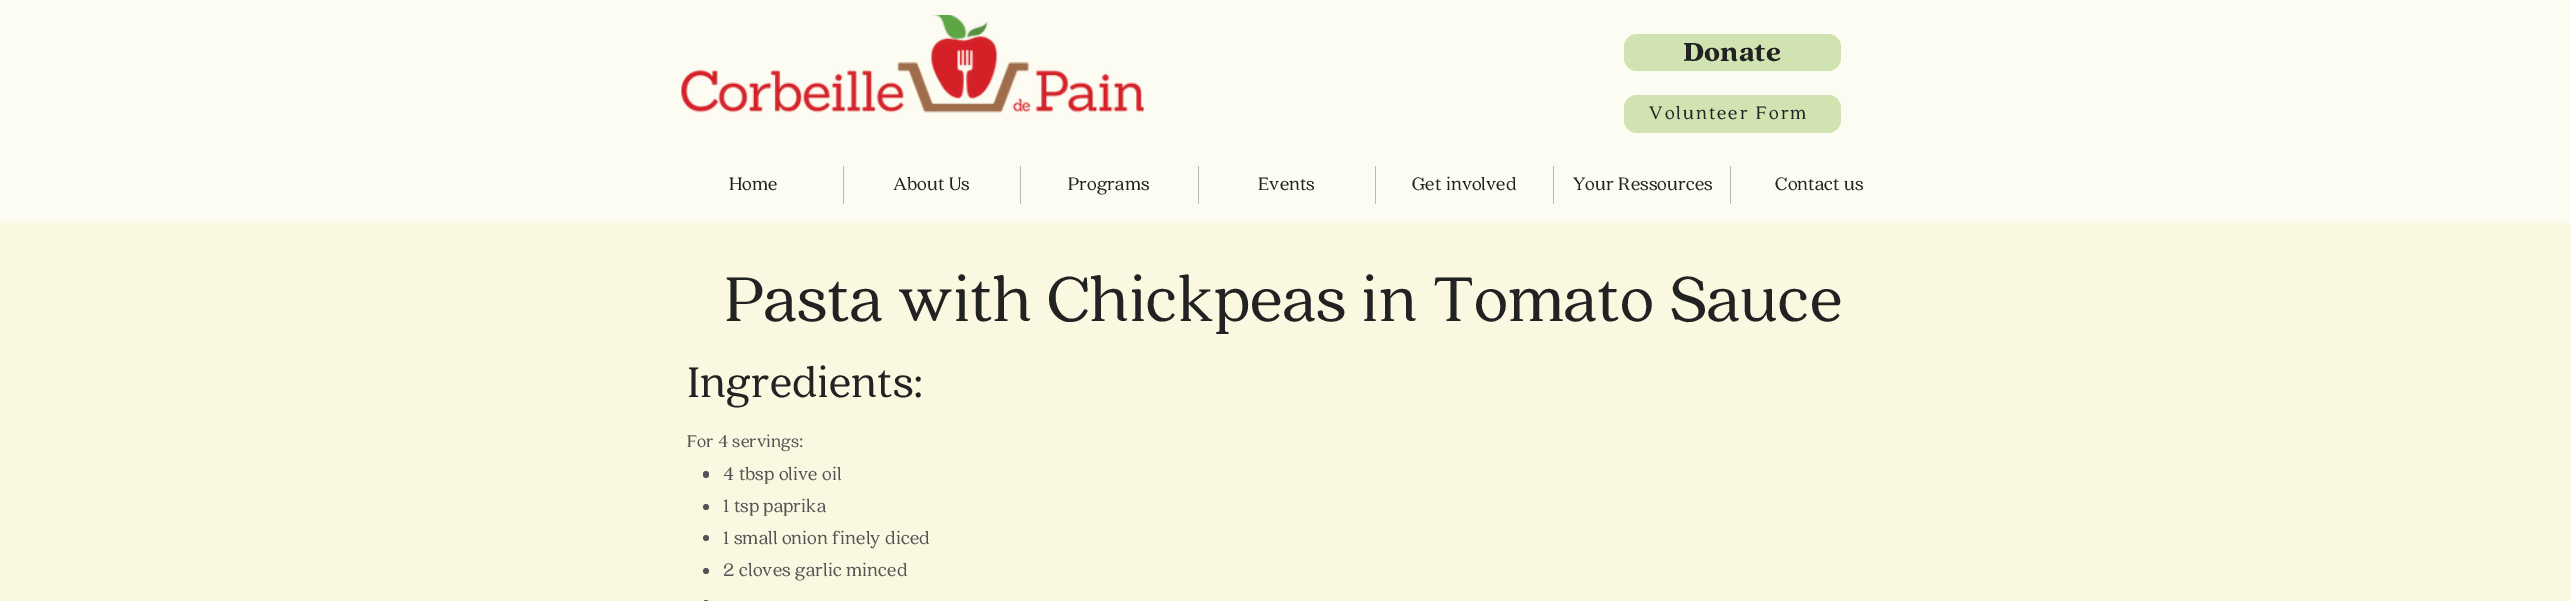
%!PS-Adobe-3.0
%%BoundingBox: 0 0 2571 601
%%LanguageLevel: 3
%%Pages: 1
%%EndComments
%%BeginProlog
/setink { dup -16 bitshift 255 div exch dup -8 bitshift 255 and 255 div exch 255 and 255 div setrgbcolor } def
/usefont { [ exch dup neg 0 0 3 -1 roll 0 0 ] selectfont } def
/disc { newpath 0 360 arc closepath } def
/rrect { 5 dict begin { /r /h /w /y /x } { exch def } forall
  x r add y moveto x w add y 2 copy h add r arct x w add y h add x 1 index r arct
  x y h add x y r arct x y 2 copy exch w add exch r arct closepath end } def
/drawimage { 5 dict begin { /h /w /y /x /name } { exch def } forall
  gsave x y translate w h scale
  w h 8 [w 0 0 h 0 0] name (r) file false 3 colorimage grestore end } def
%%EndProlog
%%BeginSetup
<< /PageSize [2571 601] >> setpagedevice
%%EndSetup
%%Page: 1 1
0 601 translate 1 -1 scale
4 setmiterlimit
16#FAF8E1 setink
0 0 2571 601 rectfill
16#FDFCF3 setink
0 0 2571 223 rectfill
(img1.raw) 681 15 463 98 drawimage
16#D1E3B1 setink
1624 34 217 37 13 rrect fill
/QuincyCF-Black 29 usefont
16#222222 setink
1683 61 moveto (Donate) show
16#D1E3B1 setink
1624 95 217 38 13 rrect fill
/QuincyCF-Regular 20 usefont
16#222222 setink
1649 119 moveto 2 0 (Volunteer Form) ashow
729 190 moveto (Home) show
16#BBBAB5 setink
843 166 1 38 rectfill
16#222222 setink
893 190 moveto (About Us) show
16#BBBAB5 setink
1020 166 1 38 rectfill
16#222222 setink
1068 190 moveto (Programs) show
16#BBBAB5 setink
1198 166 1 38 rectfill
16#222222 setink
1258 190 moveto (Events) show
16#BBBAB5 setink
1375 166 1 38 rectfill
16#222222 setink
1412 190 moveto (Get involved) show
16#BBBAB5 setink
1553 166 1 38 rectfill
16#222222 setink
1573 190 moveto (Your Ressources) show
16#BBBAB5 setink
1730 166 1 38 rectfill
16#222222 setink
1775 190 moveto (Contact us) show
/QuincyCF-Regular 70 usefont
725 321 moveto (Pasta with Chickpeas in Tomato Sauce) show
/QuincyCF-Regular 47.5 usefont
687 397 moveto (Ingredients:) show
/QuincyCF-Regular 18.75 usefont
16#555353 setink
687 447 moveto (For 4 servings) show
/QuincyCF-Regular 20 usefont
799 447 moveto (:) show
703 471 6 7 3 rrect fill
723 480 moveto (4 tbsp olive oil) show
706 507 3 disc fill
723 512 moveto (1 tsp paprika) show
706 538 3 disc fill
723 544 moveto (1 small onion finely diced) show
706 571 3 disc fill
723 576 moveto (2 cloves garlic minced) show
703 600 6 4 3 rrect fill
showpage
%%EOF
